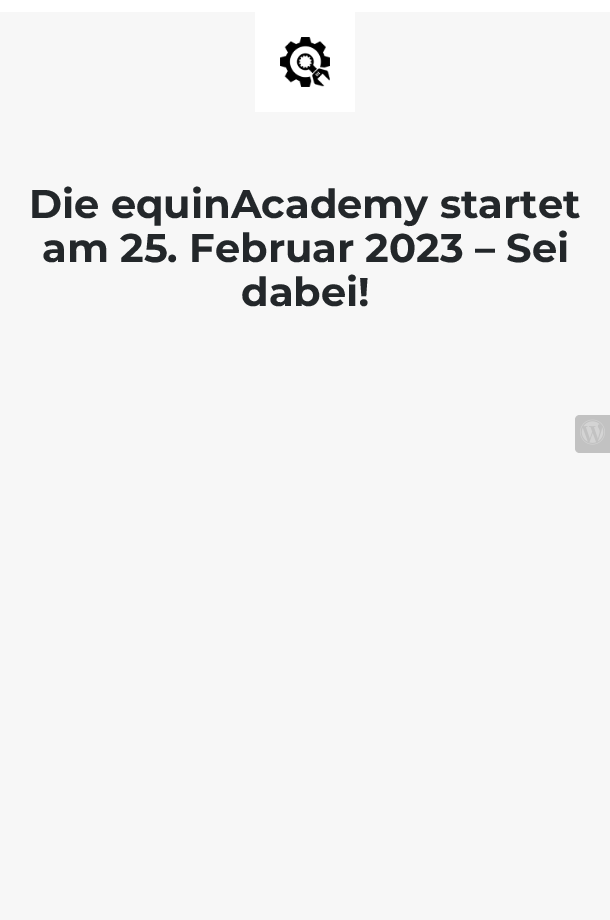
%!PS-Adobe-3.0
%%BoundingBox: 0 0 610 920
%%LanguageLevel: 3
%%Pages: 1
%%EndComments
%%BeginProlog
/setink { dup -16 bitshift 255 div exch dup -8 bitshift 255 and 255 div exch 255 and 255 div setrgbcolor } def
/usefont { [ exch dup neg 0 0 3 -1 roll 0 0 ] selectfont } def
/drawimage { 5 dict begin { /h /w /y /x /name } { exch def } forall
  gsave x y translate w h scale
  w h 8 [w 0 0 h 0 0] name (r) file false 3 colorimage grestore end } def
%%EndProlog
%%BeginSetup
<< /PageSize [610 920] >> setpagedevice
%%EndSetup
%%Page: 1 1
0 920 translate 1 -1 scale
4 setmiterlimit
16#F7F7F7 setink
0 0 610 920 rectfill
16#FFFFFF setink
0 0 610 12 rectfill
255 12 100 100 rectfill
(img1.raw) 280 37 50 50 drawimage
/Montserrat-Thin 40 usefont
16#23272A setink
[
    [(Die equinAcademy startet) 29 218]
    [(am 25. Februar 2023 – Sei) 42 262]
    [(dabei!) 241 306]
] { aload pop moveto show } forall
16#C2C2C2 setink
580 415 moveto 610 415 lineto 610 453 lineto 580 453 lineto 577 453 575 451 575 448 curveto 575 420 lineto 575 417 577 415 580 415 curveto closepath fill
(img2.raw) 580 419 25 26 drawimage
showpage
%%EOF
